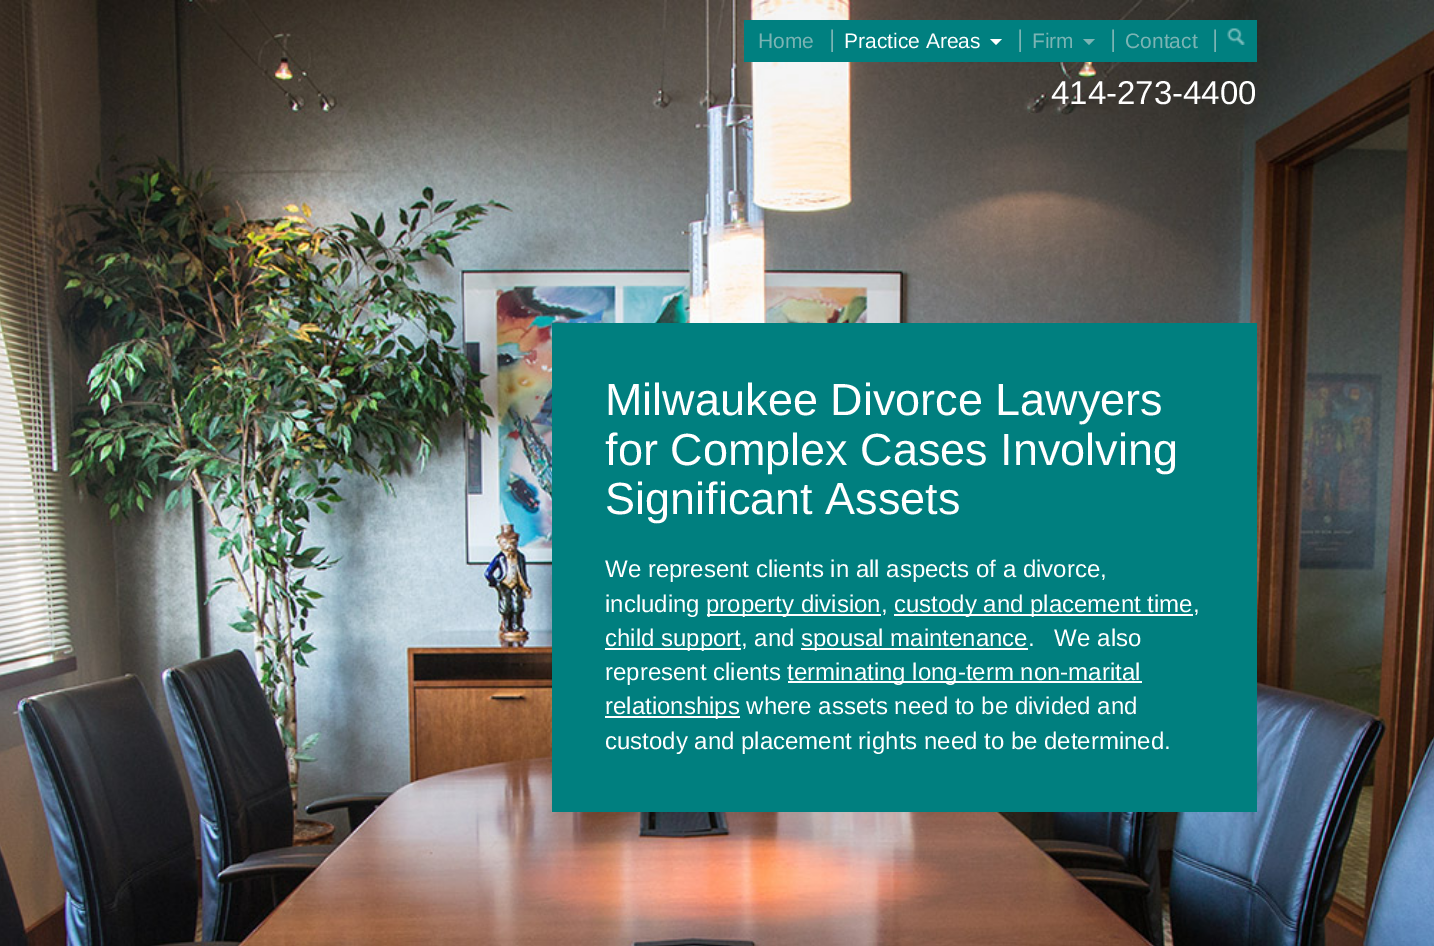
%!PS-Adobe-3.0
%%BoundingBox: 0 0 1434 946
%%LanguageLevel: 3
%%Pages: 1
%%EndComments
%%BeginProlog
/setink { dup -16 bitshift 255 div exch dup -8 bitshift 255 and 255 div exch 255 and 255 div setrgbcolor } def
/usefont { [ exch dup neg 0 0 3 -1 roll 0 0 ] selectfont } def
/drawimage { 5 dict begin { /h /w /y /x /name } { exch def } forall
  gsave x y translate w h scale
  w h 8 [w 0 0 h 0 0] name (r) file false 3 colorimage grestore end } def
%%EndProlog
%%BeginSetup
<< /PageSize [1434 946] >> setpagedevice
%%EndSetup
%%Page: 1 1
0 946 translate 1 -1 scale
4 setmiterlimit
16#FFFFFF setink
0 0 1434 946 rectfill
(img1.raw) 0 0 1434 946 drawimage
16#008080 setink
744 20 513 42 rectfill
/LiberationSans-Regular 21 usefont
16#7BB4B4 setink
758 48 moveto (Home) show
/LiberationSans-Regular 24 usefont
829 47 moveto (|) show
/LiberationSans-Regular 21 usefont
16#FFFFFF setink
844 48 moveto (Practice Areas) show
990 39 moveto 1002 39 lineto 996 45 lineto closepath fill
/LiberationSans-Regular 24 usefont
16#7BB4B4 setink
1017 47 moveto (|) show
/LiberationSans-Regular 21 usefont
1032 48 moveto (Firm) show
1083 39 moveto 1095 39 lineto 1089 45 lineto closepath fill
/LiberationSans-Regular 24 usefont
1110 47 moveto (|) show
/LiberationSans-Regular 21 usefont
1125 48 moveto (Contact) show
/LiberationSans-Regular 24 usefont
1212 47 moveto (|) show
(img2.raw) 1227 28 18 17 drawimage
/LiberationSans-Regular 33 usefont
16#FFFFFF setink
1051 104 moveto (414-273-4400) show
16#007F7F setink
552 323 705 489 rectfill
/LiberationSans-Regular 45 usefont
16#FFFFFF setink
[
    [(Milwaukee Divorce Lawyers) 605 415]
    [(for Complex Cases Involving) 605 465]
    [(Significant Assets) 605 514]
] { aload pop moveto show } forall
/LiberationSans-Regular 24 usefont
605 577 moveto (We represent clients in all aspects of a divorce,) show
605 612 moveto (including) show
707 614 174 2 rectfill
706 612 moveto (property division,) show
894 614 299 2 rectfill
894 612 moveto (custody and placement time,) show
605 648 136 2 rectfill
605 646 moveto (child support, and) show
801 648 227 2 rectfill
801 646 moveto (spousal maintenance.   We also) show
605 680 moveto (represent clients) show
788 681 354 2 rectfill
787 680 moveto (terminating long-term non-marital) show
605 716 135 2 rectfill
605 714 moveto (relationships where assets need to be divided and) show
605 749 moveto (custody and placement rights need to be determined.) show
showpage
%%EOF
